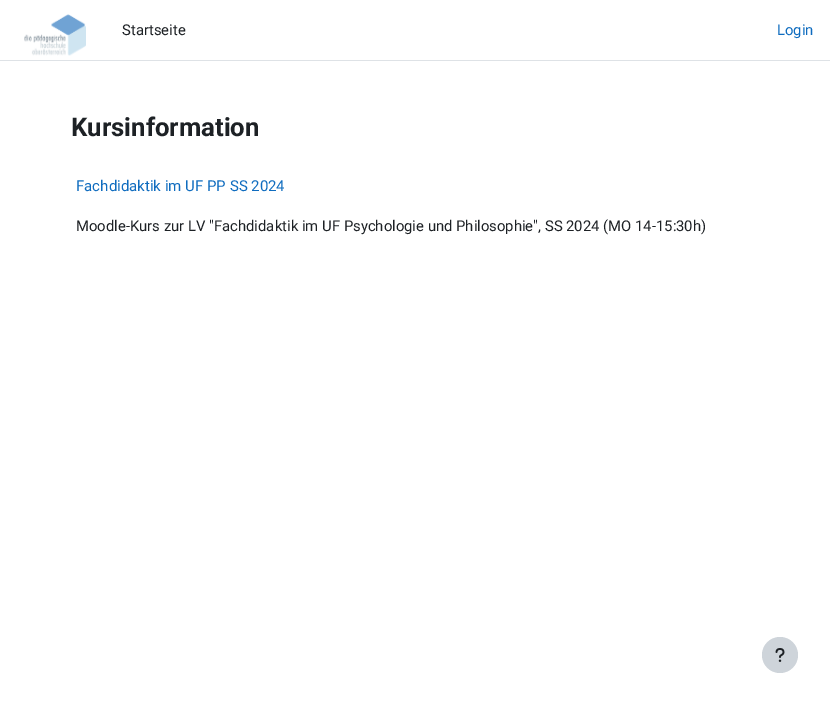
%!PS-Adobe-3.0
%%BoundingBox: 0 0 830 705
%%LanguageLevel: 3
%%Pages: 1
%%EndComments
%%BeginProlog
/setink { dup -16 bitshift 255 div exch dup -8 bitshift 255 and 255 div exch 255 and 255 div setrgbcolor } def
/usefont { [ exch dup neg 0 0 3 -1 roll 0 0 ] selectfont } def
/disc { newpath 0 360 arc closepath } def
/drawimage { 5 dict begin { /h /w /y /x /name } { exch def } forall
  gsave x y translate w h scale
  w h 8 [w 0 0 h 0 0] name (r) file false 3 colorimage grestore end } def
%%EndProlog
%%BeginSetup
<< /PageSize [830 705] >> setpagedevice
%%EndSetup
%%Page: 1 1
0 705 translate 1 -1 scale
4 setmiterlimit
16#FFFFFF setink
0 0 830 705 rectfill
16#DEE2E6 setink
0 60 830 1 rectfill
(img1.raw) 24 14 62 42 drawimage
/Roboto-Regular 14.85 usefont
16#1D2125 setink
122 35 moveto (Startseite) show
16#0F6CBF setink
777 35 moveto (Login) show
/Roboto-Bold 25.75 usefont
16#1D2125 setink
71 136 moveto (Kursinformation) show
/Roboto-Regular 15 usefont
16#0F6CBF setink
76 191 moveto (Fachdidaktik im UF PP SS 2024) show
/Roboto-Regular 14.85 usefont
16#1D2125 setink
76 231 moveto (Moodle-Kurs zur LV "Fachdidaktik im UF Psychologie und Philosophie", SS 2024 \(MO 14-15:30h\)) show
16#CED4DA setink
780 655 18 disc fill
(img2.raw) 775 648 10 14 drawimage
showpage
%%EOF
